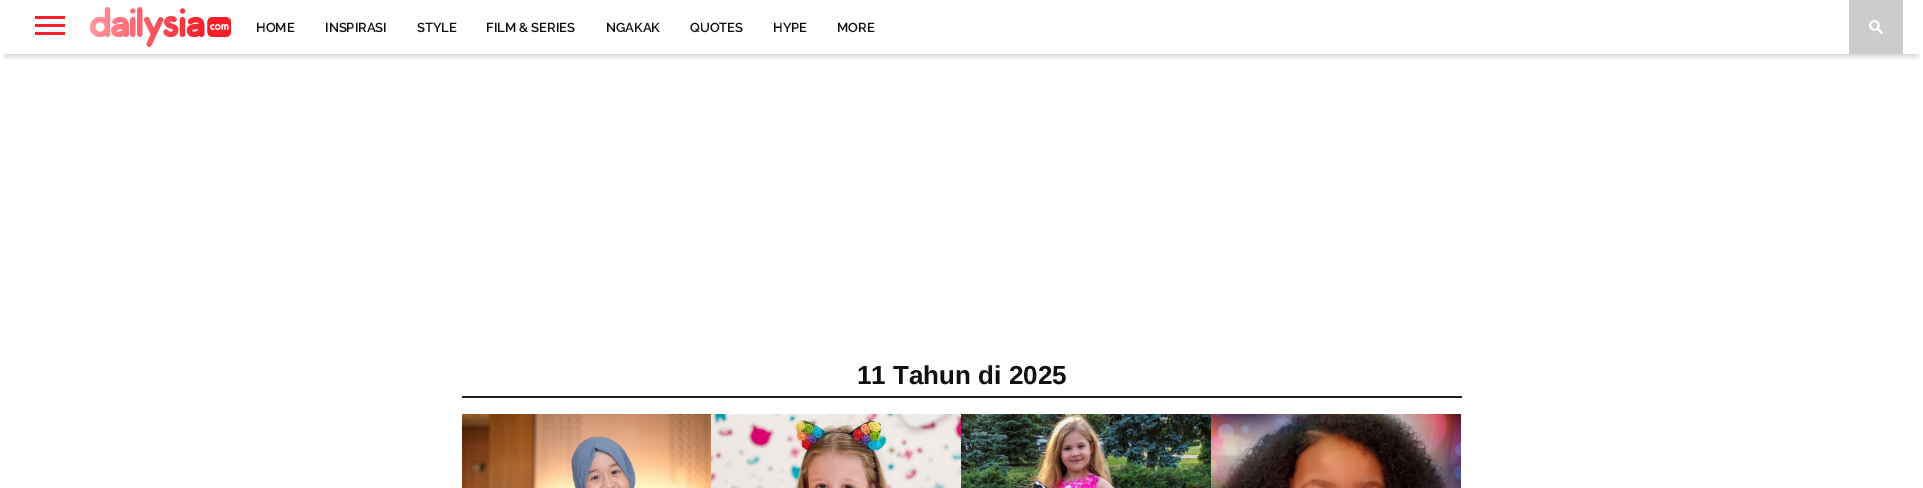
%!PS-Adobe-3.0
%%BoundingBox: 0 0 1923 488
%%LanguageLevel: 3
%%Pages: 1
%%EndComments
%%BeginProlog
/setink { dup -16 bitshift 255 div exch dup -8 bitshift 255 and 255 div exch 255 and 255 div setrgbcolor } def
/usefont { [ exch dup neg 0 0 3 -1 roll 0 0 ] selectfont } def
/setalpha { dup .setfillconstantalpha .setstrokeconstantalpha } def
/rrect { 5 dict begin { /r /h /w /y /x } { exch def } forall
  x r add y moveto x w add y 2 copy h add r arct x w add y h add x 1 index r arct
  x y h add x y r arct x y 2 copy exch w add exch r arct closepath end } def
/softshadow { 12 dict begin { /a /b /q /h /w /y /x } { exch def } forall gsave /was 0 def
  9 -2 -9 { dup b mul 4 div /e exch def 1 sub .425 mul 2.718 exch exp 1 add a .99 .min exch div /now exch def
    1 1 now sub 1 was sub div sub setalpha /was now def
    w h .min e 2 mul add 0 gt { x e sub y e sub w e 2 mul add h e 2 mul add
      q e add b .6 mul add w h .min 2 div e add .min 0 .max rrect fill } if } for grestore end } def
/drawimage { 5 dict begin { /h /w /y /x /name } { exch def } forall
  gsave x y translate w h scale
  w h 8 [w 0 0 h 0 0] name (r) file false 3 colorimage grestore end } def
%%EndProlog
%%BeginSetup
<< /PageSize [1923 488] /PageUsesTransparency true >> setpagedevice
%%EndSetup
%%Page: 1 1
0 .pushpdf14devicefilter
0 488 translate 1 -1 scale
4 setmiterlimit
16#FFFFFF setink
0 0 1923 488 rectfill
gsave
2 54 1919 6 rectclip
16#000000 setink
6 14 1911 42 0 3.5 0.2 softshadow
grestore
[
    [35 16 30 3 16#F51E29]
    [35 24 30 3 16#F51E29]
    [35 32 30 3 16#F51E29]
] { aload pop setink rectfill } forall
(img1.raw) 90 7 141 40 drawimage
/Raleway-SemiBold 13 usefont
16#111111 setink
[
    [(HOME) 256 32]
    [(INSPIRASI) 325 32]
    [(STYLE) 417 32]
    [(FILM & SERIES) 486 32]
    [(NGAKAK) 606 32]
    [(QUOTES) 690 32]
    [(HYPE) 773 32]
    [(MORE) 837 32]
] { aload pop moveto show } forall
16#CCCCCC setink
1849 0 54 54 rectfill
(img2.raw) 1869 20 14 14 drawimage
16#222222 setink
462 396 1000 2 rectfill
/LiberationSans-Bold 26 usefont
16#111111 setink
857 384 moveto (11 Tahun di 2025) show
(img3.raw) 462 414 249 74 drawimage
(img4.raw) 711 414 250 74 drawimage
(img5.raw) 961 414 250 74 drawimage
(img6.raw) 1211 414 250 74 drawimage
.poppdf14devicefilter showpage
%%EOF
